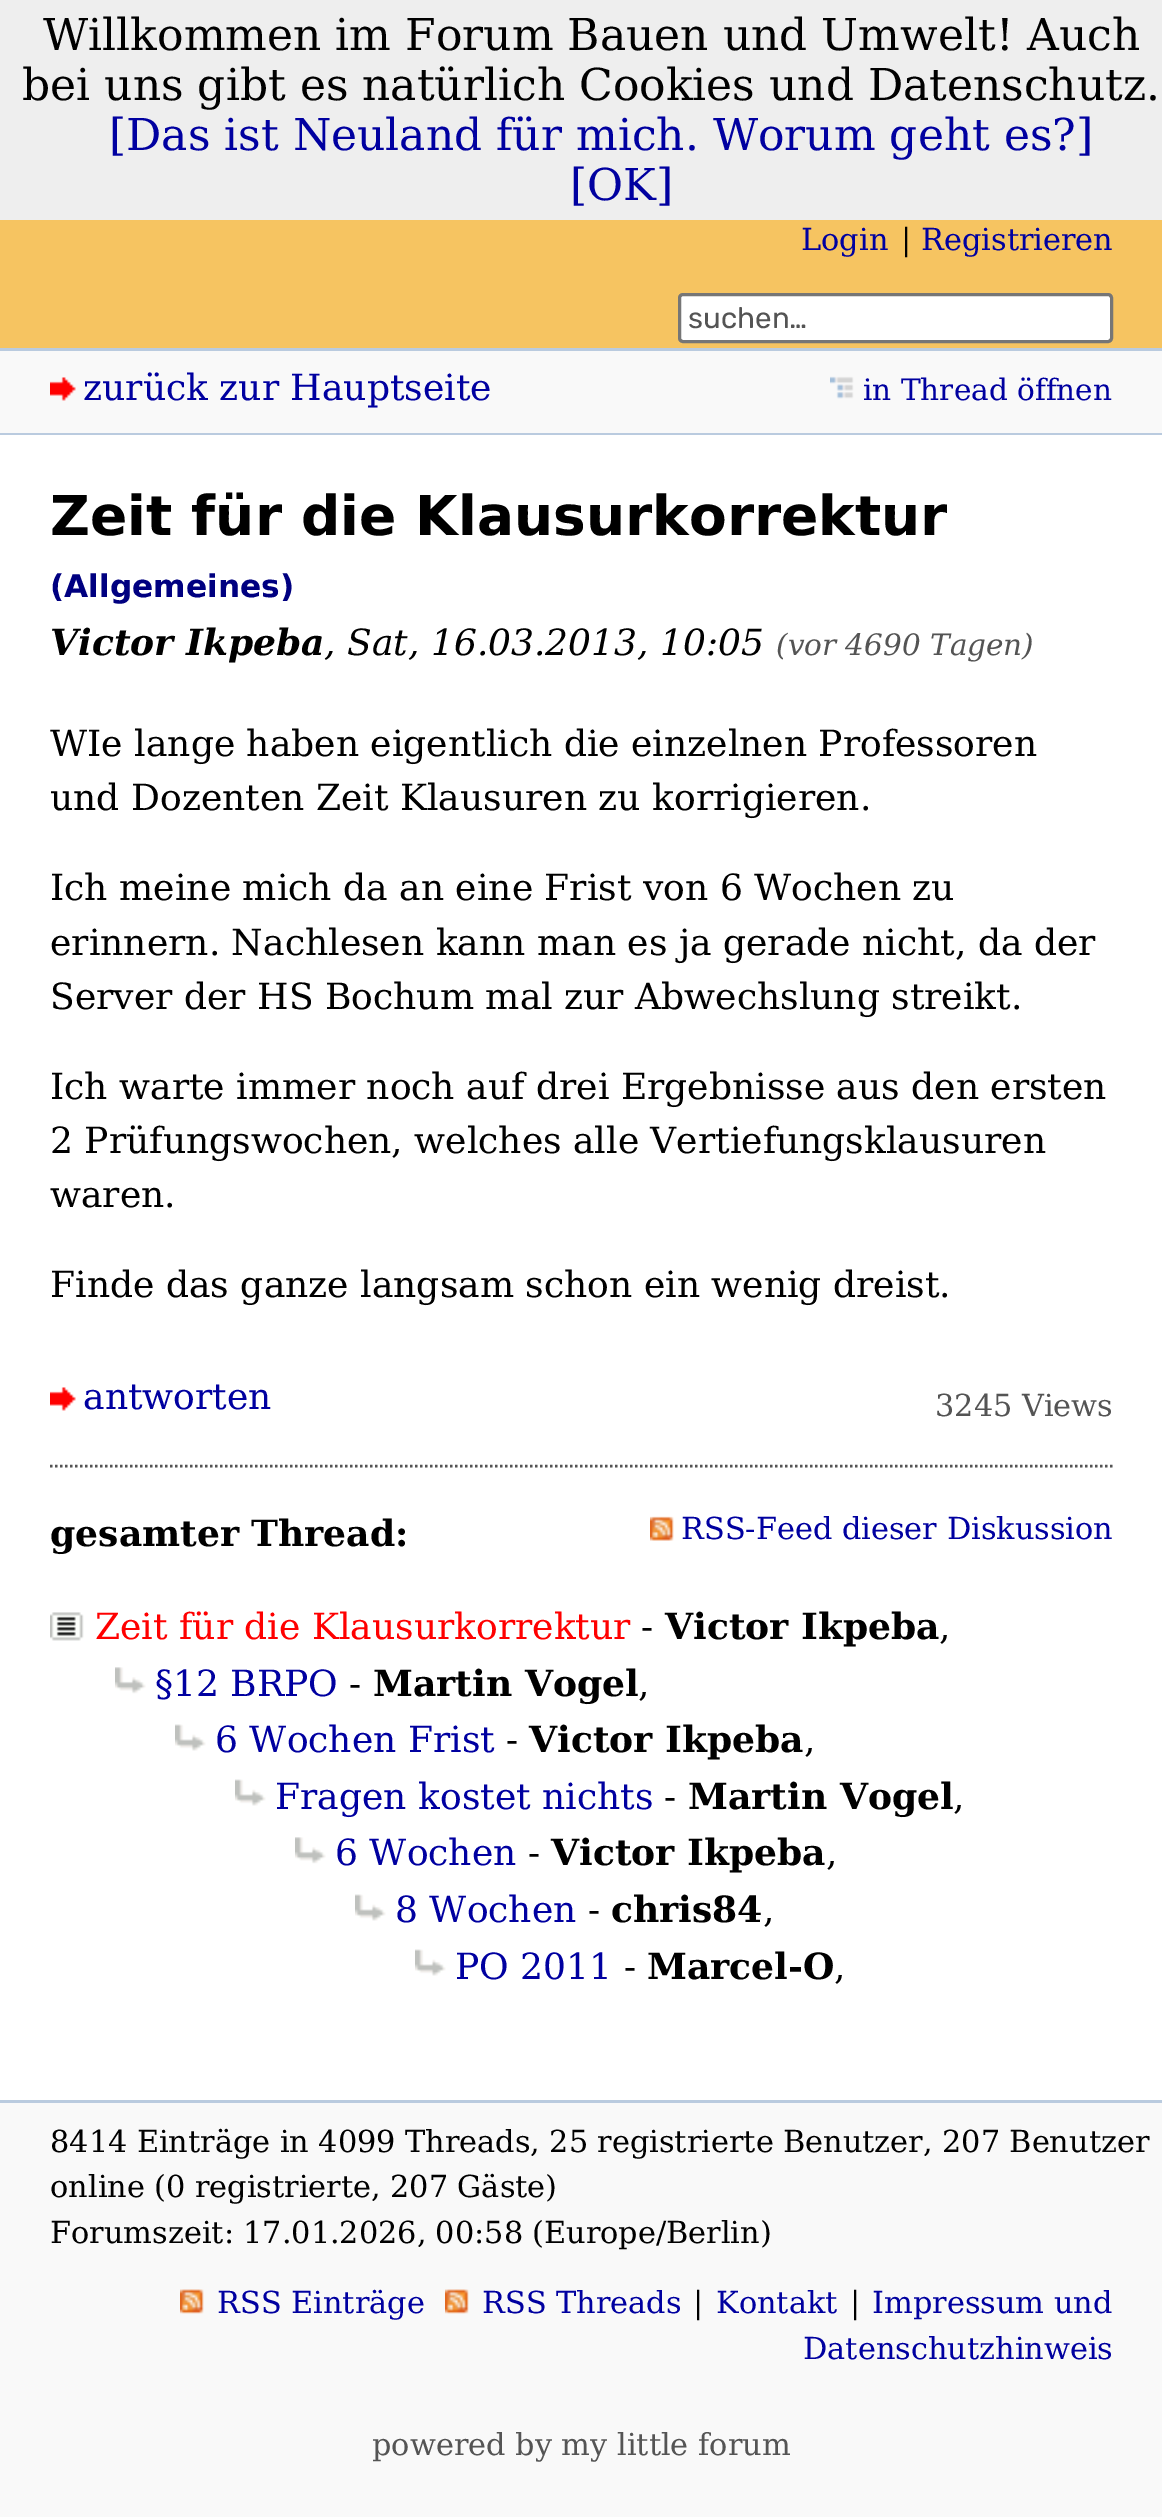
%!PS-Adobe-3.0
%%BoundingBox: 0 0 1162 2517
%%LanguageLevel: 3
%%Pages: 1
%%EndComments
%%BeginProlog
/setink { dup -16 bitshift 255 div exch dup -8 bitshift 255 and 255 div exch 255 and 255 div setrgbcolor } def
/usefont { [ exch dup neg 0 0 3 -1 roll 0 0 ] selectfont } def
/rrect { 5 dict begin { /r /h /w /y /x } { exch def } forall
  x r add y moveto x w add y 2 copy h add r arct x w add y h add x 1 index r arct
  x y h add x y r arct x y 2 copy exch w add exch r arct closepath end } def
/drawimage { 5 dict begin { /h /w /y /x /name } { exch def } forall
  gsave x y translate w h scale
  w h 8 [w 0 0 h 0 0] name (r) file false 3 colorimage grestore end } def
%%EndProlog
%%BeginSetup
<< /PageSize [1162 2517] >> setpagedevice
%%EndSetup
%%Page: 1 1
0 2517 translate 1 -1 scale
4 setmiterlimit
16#F9F9F9 setink
0 0 1162 2517 rectfill
16#EEEEEE setink
0 0 1162 220 rectfill
/DejaVuSerif-Regular 44 usefont
16#000000 setink
43 50 moveto (Willkommen im Forum Bauen und Umwelt! Auch) show
22 100 moveto (bei uns gibt es natürlich Cookies und Datenschutz.) show
16#0000A0 setink
109 150 moveto ([Das ist Neuland für mich. Worum geht es?]) show
570 200 moveto ([OK]) show
16#F6C461 setink
0 220 1162 128 rectfill
/DejaVuSerif-Regular 30.35 usefont
16#0000A0 setink
801 250 moveto (Login) show
16#000000 setink
901 250 moveto (|) show
16#0000A0 setink
921 250 moveto (Registrieren) show
16#FFFFFF setink
679.5 294.5 432 47 3.5 rrect gsave fill grestore
16#767676 setink
3 setlinewidth
stroke
/Rubik-Regular 29.5 usefont
16#545454 setink
688 328 moveto (suchen…) show
16#BACBDF setink
0 348 1162 3 rectfill
0 433 1162 2 rectfill
(img1.raw) 50 377 26 24 drawimage
/DejaVuSerif-Regular 36.1 usefont
16#0000A0 setink
83 400 moveto (zurück zur Hauptseite) show
(img2.raw) 830 376 24 23 drawimage
/DejaVuSerif-Regular 29.5 usefont
863 400 moveto (in Thread öffnen) show
16#FFFFFF setink
0 435 1162 1665 rectfill
/DejaVuSans-Bold 55 usefont
16#000000 setink
50 535 moveto (Zeit für die Klausurkorrektur) show
/DejaVuSans-Bold 31.25 usefont
16#000080 setink
50 597 moveto (\(Allgemeines\)) show
/DejaVuSerif-BoldItalic 36.1 usefont
16#000000 setink
50 655 moveto (Victor Ikpeba) show
/DejaVuSerif-Italic 36.1 usefont
324 655 moveto (, Sat, 16.03.2013, 10:05) show
/DejaVuSerif-Italic 29.5 usefont
16#545454 setink
776 655 moveto (\(vor 4690 Tagen\)) show
/DejaVuSerif-Regular 36.1 usefont
16#000000 setink
[
    [(WIe lange haben eigentlich die einzelnen Professoren) 50 756]
    [(und Dozenten Zeit Klausuren zu korrigieren.) 50 810]
    [(Ich meine mich da an eine Frist von 6 Wochen zu) 50 900]
    [(erinnern. Nachlesen kann man es ja gerade nicht, da der) 50 955]
    [(Server der HS Bochum mal zur Abwechslung streikt.) 50 1009]
    [(Ich warte immer noch auf drei Ergebnisse aus den ersten) 50 1099]
    [(2 Prüfungswochen, welches alle Vertiefungsklausuren) 50 1153]
    [(waren.) 50 1207]
    [(Finde das ganze langsam schon ein wenig dreist.) 50 1297]
] { aload pop moveto show } forall
(img3.raw) 50 1387 26 24 drawimage
16#0000A0 setink
83 1409 moveto (antworten) show
/DejaVuSerif-Regular 30.35 usefont
16#545454 setink
935 1416 moveto (3245 Views) show
2.5 setlinewidth
[2.5 2.5] 0 setdash
50 1466 moveto 1112.5 1466 lineto stroke
/DejaVuSerif-Bold 36.1 usefont
16#000000 setink
50 1546 moveto (gesamter Thread:) show
(img4.raw) 650 1516 24 25 drawimage
/DejaVuSerif-Regular 30.35 usefont
16#0000A0 setink
681 1539 moveto (RSS-Feed dieser Diskussion) show
(img5.raw) 50 1612 34 29 drawimage
/DejaVuSerif-Regular 36.1 usefont
16#FF0000 setink
95 1639 moveto (Zeit für die Klausurkorrektur) show
16#000000 setink
641 1639 moveto (-) show
/DejaVuSerif-Bold 36.1 usefont
665 1639 moveto (Victor Ikpeba) show
/DejaVuSerif-Regular 36.1 usefont
939 1639 moveto (,) show
(img6.raw) 115 1667 31 27 drawimage
16#0000A0 setink
155 1696 moveto (§12 BRPO) show
16#000000 setink
349 1696 moveto (-) show
/DejaVuSerif-Bold 36.1 usefont
373 1696 moveto (Martin Vogel) show
/DejaVuSerif-Regular 36.1 usefont
638 1696 moveto (,) show
(img7.raw) 175 1724 31 27 drawimage
16#0000A0 setink
215 1752 moveto (6 Wochen Frist) show
16#000000 setink
506 1752 moveto (-) show
/DejaVuSerif-Bold 36.1 usefont
529 1752 moveto (Victor Ikpeba) show
/DejaVuSerif-Regular 36.1 usefont
804 1752 moveto (,) show
(img8.raw) 235 1779 31 27 drawimage
16#0000A0 setink
275 1809 moveto (Fragen kostet nichts) show
16#000000 setink
664 1809 moveto (-) show
/DejaVuSerif-Bold 36.1 usefont
688 1809 moveto (Martin Vogel) show
/DejaVuSerif-Regular 36.1 usefont
953 1809 moveto (,) show
(img9.raw) 295 1837 31 27 drawimage
16#0000A0 setink
335 1865 moveto (6 Wochen) show
16#000000 setink
528 1865 moveto (-) show
/DejaVuSerif-Bold 36.1 usefont
551 1865 moveto (Victor Ikpeba) show
/DejaVuSerif-Regular 36.1 usefont
826 1865 moveto (,) show
(img7.raw) 355 1894 31 27 drawimage
16#0000A0 setink
395 1922 moveto (8 Wochen) show
16#000000 setink
588 1922 moveto (-) show
/DejaVuSerif-Bold 36.1 usefont
611 1922 moveto (chris84) show
/DejaVuSerif-Regular 36.1 usefont
763 1922 moveto (,) show
(img10.raw) 415 1949 31 27 drawimage
16#0000A0 setink
455 1979 moveto (PO 2011) show
16#000000 setink
624 1979 moveto (-) show
/DejaVuSerif-Bold 36.1 usefont
647 1979 moveto (Marcel-O) show
/DejaVuSerif-Regular 36.1 usefont
834 1979 moveto (,) show
16#BACBDF setink
0 2100 1162 3 rectfill
/DejaVuSerif-Regular 30.35 usefont
16#000000 setink
50 2152 moveto -0.25 0 32 (8414 Einträge in 4099 Threads, 25 registrierte Benutzer, 207 Benutzer) widthshow
50 2197 moveto -0.25 0 32 (online \(0 registrierte, 207 Gäste\)) widthshow
50 2243 moveto -0.5 0 32 (Forumszeit: 17.01.2026, 00:58 \(Europe/Berlin\)) widthshow
(img11.raw) 180 2289 24 25 drawimage
16#0000A0 setink
217 2313 moveto (RSS Einträge) show
(img12.raw) 445 2289 24 25 drawimage
482 2313 moveto (RSS Threads) show
16#000000 setink
693 2313 moveto (|) show
16#0000A0 setink
716 2313 moveto (Kontakt) show
16#000000 setink
850 2313 moveto (|) show
16#0000A0 setink
872 2313 moveto (Impressum und) show
803 2359 moveto (Datenschutzhinweis) show
16#545454 setink
372 2455 moveto (powered by my little forum) show
showpage
%%EOF
